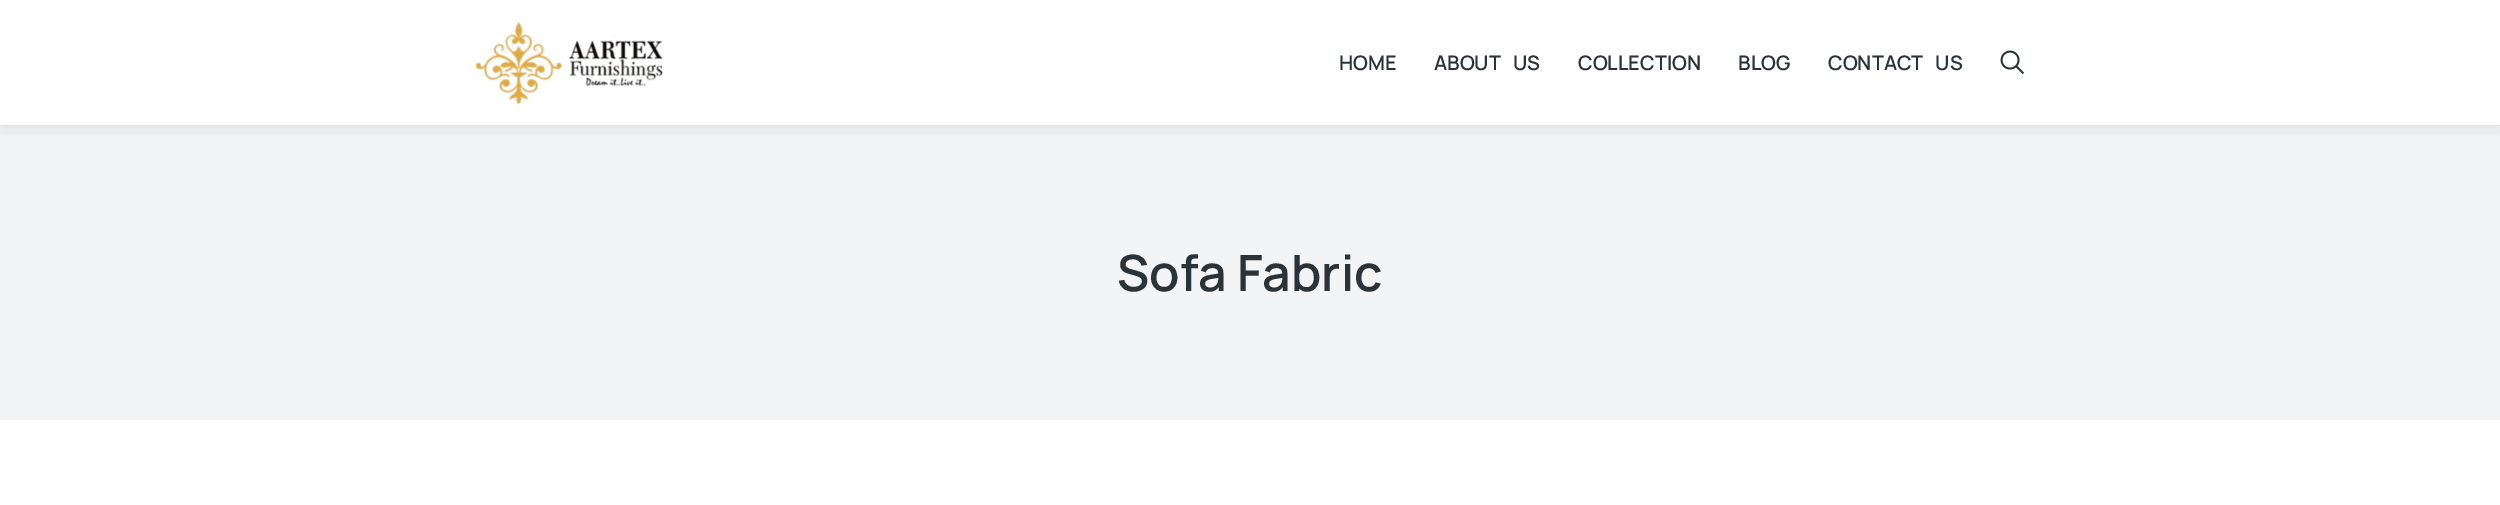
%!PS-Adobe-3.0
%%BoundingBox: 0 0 2500 505
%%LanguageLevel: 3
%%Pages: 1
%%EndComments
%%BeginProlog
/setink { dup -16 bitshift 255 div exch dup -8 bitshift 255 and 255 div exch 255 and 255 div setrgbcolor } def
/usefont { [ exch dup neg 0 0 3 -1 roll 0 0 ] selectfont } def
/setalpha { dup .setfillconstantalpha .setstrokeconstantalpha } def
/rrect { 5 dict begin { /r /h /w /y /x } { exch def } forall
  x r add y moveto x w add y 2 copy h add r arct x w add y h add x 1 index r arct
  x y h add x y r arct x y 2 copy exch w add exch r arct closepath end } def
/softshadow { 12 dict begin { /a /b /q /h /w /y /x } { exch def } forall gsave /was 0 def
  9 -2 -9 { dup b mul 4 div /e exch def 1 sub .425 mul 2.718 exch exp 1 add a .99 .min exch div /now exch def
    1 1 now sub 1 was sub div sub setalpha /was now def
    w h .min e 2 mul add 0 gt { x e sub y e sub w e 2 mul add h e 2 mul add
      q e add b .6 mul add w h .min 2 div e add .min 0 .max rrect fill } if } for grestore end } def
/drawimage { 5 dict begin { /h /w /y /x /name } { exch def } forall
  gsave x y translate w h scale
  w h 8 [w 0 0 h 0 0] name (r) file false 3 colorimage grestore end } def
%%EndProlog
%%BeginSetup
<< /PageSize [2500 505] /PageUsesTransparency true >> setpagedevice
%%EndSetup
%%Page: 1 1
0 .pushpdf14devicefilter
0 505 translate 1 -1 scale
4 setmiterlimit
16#FFFFFF setink
0 0 2500 505 rectfill
16#F2F4F6 setink
0 125 2500 295 rectfill
gsave
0 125 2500 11 rectclip
16#000000 setink
0 0 2500 125 0 12.5 0.1 softshadow
grestore
(img1.raw) 475 21 188 83 drawimage
/Manrope-SemiBold 20 usefont
16#2C3338 setink
1339 70 moveto (HOME) show
1434 70 moveto 8 0 32 (ABOUT US) widthshow
1578 70 moveto (COLLECTION) show
1738 70 moveto (BLOG) show
1828 70 moveto 8 0 32 (CONTACT US) widthshow
(img2.raw) 2000 50 25 25 drawimage
/Manrope-SemiBold 50 usefont
1117 291 moveto (Sofa Fabric) show
.poppdf14devicefilter showpage
%%EOF
